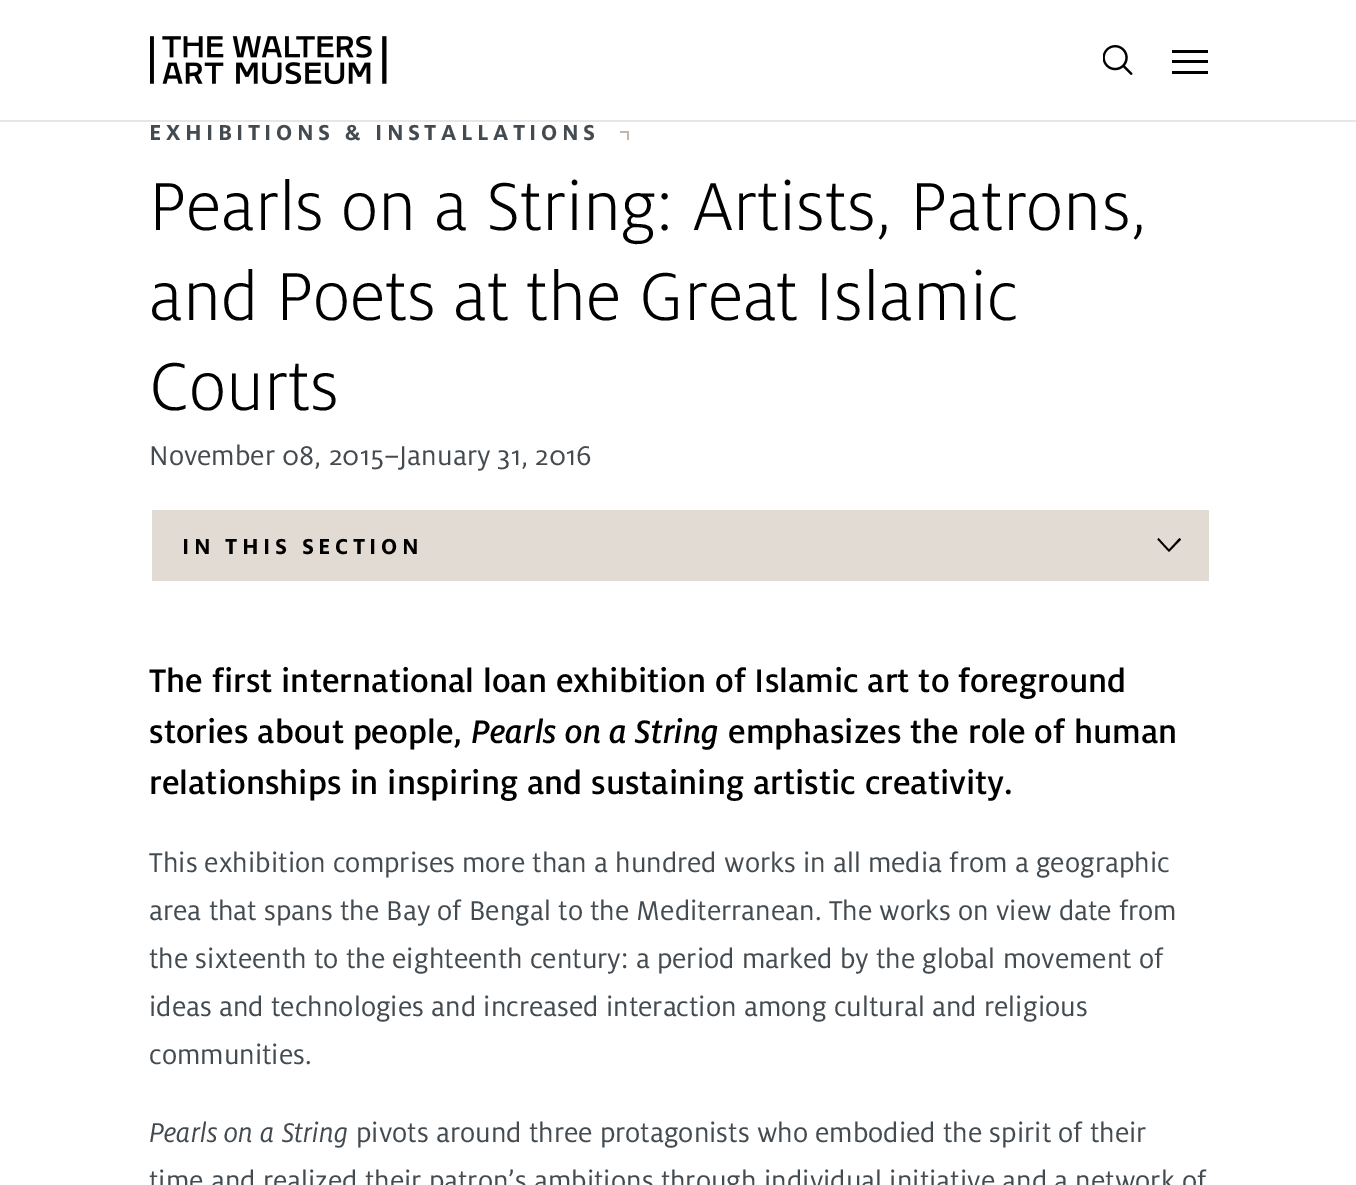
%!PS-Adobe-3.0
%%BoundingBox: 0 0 1356 1185
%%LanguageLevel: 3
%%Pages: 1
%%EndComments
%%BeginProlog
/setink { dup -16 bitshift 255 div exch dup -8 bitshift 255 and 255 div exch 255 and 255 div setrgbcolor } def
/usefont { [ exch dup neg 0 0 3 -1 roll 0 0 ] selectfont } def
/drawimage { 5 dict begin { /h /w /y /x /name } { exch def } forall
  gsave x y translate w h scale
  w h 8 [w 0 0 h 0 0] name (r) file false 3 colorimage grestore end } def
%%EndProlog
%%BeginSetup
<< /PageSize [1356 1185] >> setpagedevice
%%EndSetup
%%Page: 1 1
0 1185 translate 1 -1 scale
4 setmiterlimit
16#FFFFFF setink
0 0 1356 1185 rectfill
(img1.raw) 150 36 237 49 drawimage
(img2.raw) 1103 45 30 30 drawimage
[
    [1172 50 36 3 16#000000]
    [1172 60 36 3 16#000000]
    [1172 71 36 3 16#000000]
    [0 120 1356 2 16#E6E6E6]
] { aload pop setink rectfill } forall
/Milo-Bold 24 usefont
16#434A50 setink
149 140 moveto 4.5 0 (EXHIBITIONS & INSTALLATIONS) ashow
16#C5B8AA setink
620 131 9 2 rectfill
627 131 2 9 rectfill
/Milo-Light 75 usefont
16#000000 setink
[
    [(Pearls on a String: Artists, Patrons,) 149 230]
    [(and Poets at the Great Islamic) 149 320]
    [(Courts) 149 410]
] { aload pop moveto show } forall
/Milo-Regular 30 usefont
16#434A50 setink
149 465 moveto (November 08, 2015–January 31, 2016) show
16#E2DBD4 setink
152 510 1057 71 rectfill
/Milo-Bold 24 usefont
16#000000 setink
182 554 moveto 4.5 0 (IN THIS SECTION) ashow
1179.5 538 moveto 1181 539.5 lineto 1169 552 lineto 1157.5 539.5 lineto 1158.5 538 lineto 1169 549.5 lineto closepath fill
/Milo-Medium 36 usefont
149 692 moveto (The first international loan exhibition of Islamic art to foreground) show
149 743 moveto (stories about people,) show
/Milo-MediumItalic 36 usefont
471 743 moveto (Pearls on a String) show
/Milo-Medium 36 usefont
728 743 moveto (emphasizes the role of human) show
149 794 moveto (relationships in inspiring and sustaining artistic creativity.) show
/Milo-Regular 30 usefont
16#434A50 setink
[
    [(This exhibition comprises more than a hundred works in all media from a geographic) 149 872]
    [(area that spans the Bay of Bengal to the Mediterranean. The works on view date from) 149 920]
    [(the sixteenth to the eighteenth century: a period marked by the global movement of) 149 968]
    [(ideas and technologies and increased interaction among cultural and religious) 149 1016]
    [(communities.) 149 1064]
] { aload pop moveto show } forall
/Milo-Italic 30 usefont
149 1142 moveto (Pearls on a String) show
/Milo-Regular 30 usefont
356 1142 moveto (pivots around three protagonists who embodied the spirit of their) show
149 1190 moveto (time and realized their patron’s ambitions through individual initiative and a network of) show
showpage
%%EOF
